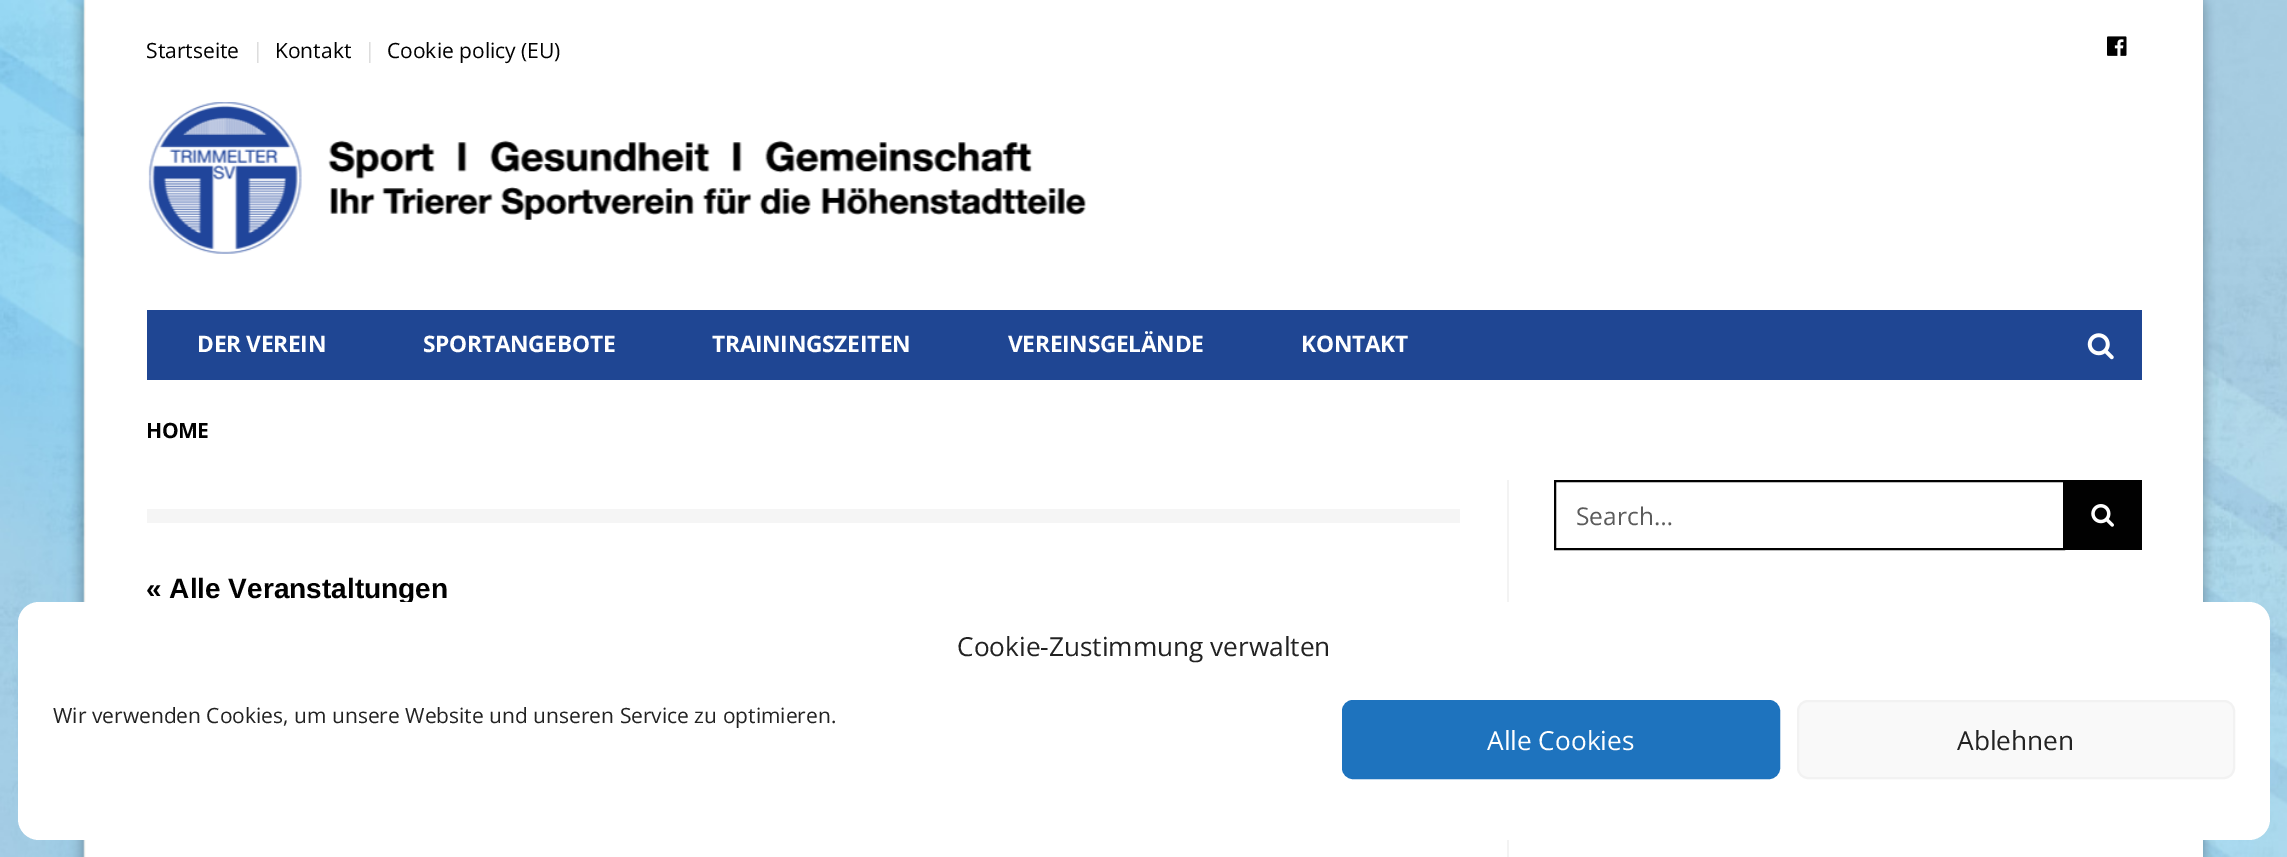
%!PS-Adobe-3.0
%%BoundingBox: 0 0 2287 857
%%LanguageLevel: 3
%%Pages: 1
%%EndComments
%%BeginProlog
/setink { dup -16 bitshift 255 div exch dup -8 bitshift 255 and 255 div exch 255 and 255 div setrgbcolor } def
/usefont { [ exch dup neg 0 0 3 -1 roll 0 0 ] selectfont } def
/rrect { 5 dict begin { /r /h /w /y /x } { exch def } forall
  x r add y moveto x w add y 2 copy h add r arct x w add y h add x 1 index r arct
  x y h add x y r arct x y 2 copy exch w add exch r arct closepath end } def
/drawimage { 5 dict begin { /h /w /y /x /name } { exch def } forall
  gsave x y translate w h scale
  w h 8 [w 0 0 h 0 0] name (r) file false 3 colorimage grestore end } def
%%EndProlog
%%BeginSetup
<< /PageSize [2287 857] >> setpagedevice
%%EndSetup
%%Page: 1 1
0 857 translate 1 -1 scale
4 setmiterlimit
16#FFFFFF setink
0 0 2287 857 rectfill
(img1.raw) 0 0 2287 857 drawimage
86 0 2117 857 rectfill
/OpenSans-Regular 21 usefont
16#010101 setink
146 58 moveto (Startseite) show
16#DDDDDD setink
252 58 moveto (|) show
16#010101 setink
275 58 moveto (Kontakt) show
16#DDDDDD setink
364 58 moveto (|) show
16#010101 setink
387 58 moveto (Cookie policy \(EU\)) show
(img2.raw) 2107 36 20 20 drawimage
(img3.raw) 148 102 938 152 drawimage
16#1F4693 setink
147 310 1995 70 rectfill
/OpenSans-Bold 22.75 usefont
16#FFFFFF setink
197 352 moveto -0.3 0 (DER VEREIN) ashow
423 352 moveto -0.3 0 (SPORTANGEBOTE) ashow
712 352 moveto -0.3 0 (TRAININGSZEITEN) ashow
1008 352 moveto -0.3 0 (VEREINSGELÄNDE) ashow
1301 352 moveto -0.3 0 (KONTAKT) ashow
(img4.raw) 2087 333 27 27 drawimage
/OpenSans-Bold 21 usefont
16#010101 setink
146 438 moveto -0.5 0 (HOME) ashow
2 setlinewidth
1555 481 509 68 rectstroke
/OpenSans-Regular 24.5 usefont
16#5B5B5B setink
1576 525 moveto (Search…) show
16#010101 setink
2065 480 77 70 rectfill
(img5.raw) 2091 504 23 23 drawimage
16#F3F3F3 setink
1507 480 2 377 rectfill
16#F5F5F5 setink
147 509 1313 14 rectfill
/LiberationSans-Bold 28 usefont
16#010101 setink
146 598 moveto (« Alle Veranstaltungen) show
16#FFFFFF setink
18 602 2252 238 21 rrect fill
/OpenSans-Regular 26.25 usefont
16#222222 setink
957 656 moveto (Cookie-Zustimmung verwalten) show
/OpenSans-Regular 21 usefont
53 723 moveto (Wir verwenden Cookies, um unsere Website und unseren Service zu optimieren.) show
16#1E73BE setink
1343 701 436 77 10 rrect gsave fill grestore
stroke
/OpenSans-Regular 26.25 usefont
16#FFFFFF setink
1487 750 moveto (Alle Cookies) show
16#F9F9F9 setink
1798 701 436 77 10 rrect gsave fill grestore
16#F2F2F2 setink
stroke
16#222222 setink
1957 750 moveto (Ablehnen) show
showpage
%%EOF
